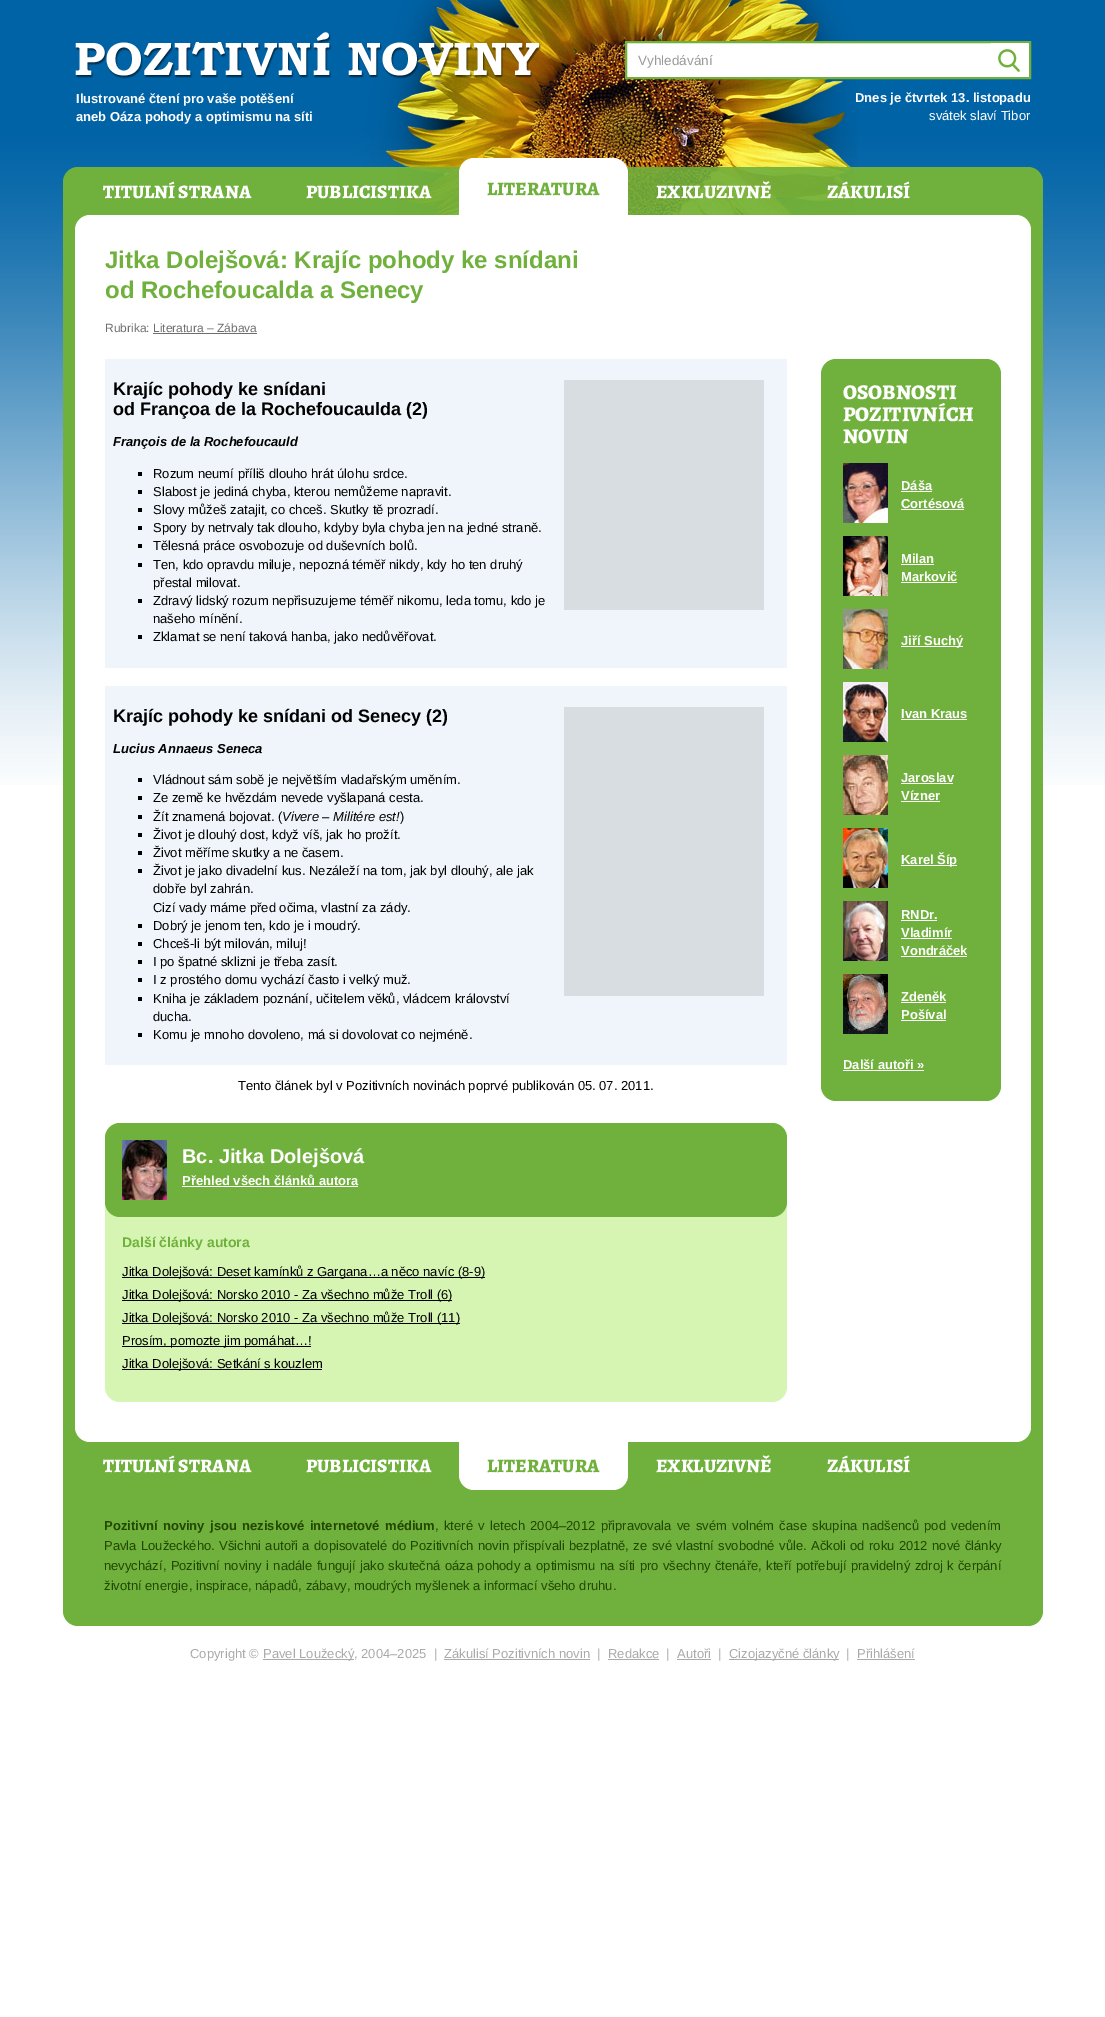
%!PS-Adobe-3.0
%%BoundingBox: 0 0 1105 2017
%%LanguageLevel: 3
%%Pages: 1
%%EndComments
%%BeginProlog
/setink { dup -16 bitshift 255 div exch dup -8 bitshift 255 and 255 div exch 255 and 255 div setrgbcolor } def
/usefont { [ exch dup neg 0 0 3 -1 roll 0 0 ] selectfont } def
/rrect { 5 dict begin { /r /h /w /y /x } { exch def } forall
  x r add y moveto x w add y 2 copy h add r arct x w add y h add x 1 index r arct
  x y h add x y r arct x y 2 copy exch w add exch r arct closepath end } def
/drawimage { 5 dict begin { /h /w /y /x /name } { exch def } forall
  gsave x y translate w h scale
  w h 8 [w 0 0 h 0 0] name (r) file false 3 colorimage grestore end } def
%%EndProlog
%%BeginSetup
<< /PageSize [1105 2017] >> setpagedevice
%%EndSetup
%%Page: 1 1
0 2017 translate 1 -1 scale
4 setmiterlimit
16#FFFFFF setink
0 0 1105 2017 rectfill
(img1.raw) 0 0 1105 785 drawimage
(img2.raw) 75 0 782 167 drawimage
626 42 moveto 1030 42 lineto 1030 78 lineto 626 78 lineto closepath gsave fill grestore
16#70B03C setink
2 setlinewidth
stroke
/LiberationSans-Regular 13.5 usefont
16#999999 setink
638 65 moveto (Vyhledávání) show
16#70B03C setink
998 49 22 23 rectfill
(img3.raw) 991 43 37 34 drawimage
/LiberationSans-Bold 13 usefont
16#FFFFFF setink
[
    [(Ilustrované čtení pro vaše potěšení) 76 103]
    [(aneb Oáza pohody a optimismu na síti) 76 121]
    [(Dnes je čtvrtek 13. listopadu) 855 102]
] { aload pop moveto show } forall
/LiberationSans-Regular 13 usefont
929 120 moveto (svátek slaví Tibor) show
16#70B03C setink
63 167 980 1459 15 rrect fill
(img4.raw) 396 167 458 48 drawimage
/Alegreya-ExtraBold 19 usefont
16#FFFFFF setink
103 198 moveto (TITULNÍ STRANA) show
306 198 moveto (PUBLICISTIKA) show
459 158 169 91 15 rrect fill
16#70B03C setink
487 195 moveto (LITERATURA) show
16#FFFFFF setink
656 198 moveto (EXKLUZIVNĚ) show
827 198 moveto (ZÁKULISÍ) show
459 1367 169 123 15 rrect fill
75 215 956 1227 15 rrect fill
/LiberationSans-Bold 24 usefont
16#70B03C setink
105 268 moveto (Jitka Dolejšová: Krajíc pohody ke snídani) show
105 298 moveto (od Rochefoucalda a Senecy) show
/LiberationSans-Regular 12 usefont
16#6E6E6E setink
105 332 moveto (Rubrika: Literatura – Zábava) show
153 333 104 1 rectfill
16#EFF5FA setink
105 359 682 309 rectfill
/LiberationSans-Bold 18 usefont
16#000000 setink
113 395 moveto (Krajíc pohody ke snídani) show
16#D7DDE1 setink
564 380 200 230 rectfill
16#000000 setink
113 415 moveto (od Françoa de la Rochefoucaulda \(2\)) show
/LiberationSans-BoldItalic 13 usefont
113 446 moveto (François de la Rochefoucauld) show
138 472 4 4 rectfill
/LiberationSans-Regular 13 usefont
153 478 moveto (Rozum neumí příliš dlouho hrát úlohu srdce.) show
138 490 4 4 rectfill
153 496 moveto (Slabost je jediná chyba, kterou nemůžeme napravit.) show
138 508 4 4 rectfill
153 514 moveto (Slovy můžeš zatajit, co chceš. Skutky tě prozradí.) show
138 526 4 4 rectfill
153 532 moveto (Spory by netrvaly tak dlouho, kdyby byla chyba jen na jedné straně.) show
138 544 4 4 rectfill
153 550 moveto (Tělesná práce osvobozuje od duševních bolů.) show
138 563 4 4 rectfill
153 569 moveto (Ten, kdo opravdu miluje, nepozná téměř nikdy, kdy ho ten druhý) show
153 587 moveto (přestal milovat.) show
138 599 4 4 rectfill
153 605 moveto (Zdravý lidský rozum nepřisuzujeme téměř nikomu, leda tomu, kdo je) show
153 623 moveto (našeho mínění.) show
138 635 4 4 rectfill
153 641 moveto (Zklamat se není taková hanba, jako nedůvěřovat.) show
16#EFF5FA setink
105 686 682 379 rectfill
/LiberationSans-Bold 18 usefont
16#000000 setink
113 722 moveto (Krajíc pohody ke snídani od Senecy \(2\)) show
16#D7DDE1 setink
564 707 200 289 rectfill
/LiberationSans-BoldItalic 13 usefont
16#000000 setink
113 753 moveto (Lucius Annaeus Seneca) show
138 778 4 4 rectfill
/LiberationSans-Regular 13 usefont
153 784 moveto (Vládnout sám sobě je největším vladařským uměním.) show
138 796 4 4 rectfill
153 802 moveto (Ze země ke hvězdám nevede vyšlapaná cesta.) show
138 815 4 4 rectfill
153 821 moveto (Žít znamená bojovat. \() show
/LiberationSans-Italic 13 usefont
282 821 moveto (Vivere – Militére est!) show
/LiberationSans-Regular 13 usefont
400 821 moveto (\)) show
138 833 4 4 rectfill
153 839 moveto (Život je dlouhý dost, když víš, jak ho prožít.) show
138 851 4 4 rectfill
153 857 moveto (Život měříme skutky a ne časem.) show
138 869 4 4 rectfill
[
    [(Život je jako divadelní kus. Nezáleží na tom, jak byl dlouhý, ale jak) 153 875]
    [(dobře byl zahrán.) 153 893]
    [(Cizí vady máme před očima, vlastní za zády.) 153 912]
] { aload pop moveto show } forall
138 924 4 4 rectfill
153 930 moveto (Dobrý je jenom ten, kdo je i moudrý.) show
138 942 4 4 rectfill
153 948 moveto (Chceš-li být milován, miluj!) show
138 960 4 4 rectfill
153 966 moveto (I po špatné sklizni je třeba zasít.) show
138 978 4 4 rectfill
153 984 moveto (I z prostého domu vychází často i velký muž.) show
138 997 4 4 rectfill
153 1003 moveto (Kniha je základem poznání, učitelem věků, vládcem království) show
153 1021 moveto (ducha.) show
138 1033 4 4 rectfill
153 1039 moveto (Komu je mnoho dovoleno, má si dovolovat co nejméně.) show
238 1090 moveto (Tento článek byl v Pozitivních novinách poprvé publikován 05. 07. 2011.) show
16#D6F5B3 setink
105 1123 682 279 15 rrect fill
16#70B03C setink
105 1123 682 94 15 rrect fill
(img5.raw) 122 1140 45 60 drawimage
/LiberationSans-Bold 20 usefont
16#FFFFFF setink
182 1163 moveto (Bc. Jitka Dolejšová) show
/LiberationSans-Bold 13 usefont
182 1185 moveto (Přehled všech článků autora) show
182 1186 176 1 rectfill
/LiberationSans-Bold 14 usefont
16#70B03C setink
122 1247 moveto (Další články autora) show
16#000000 setink
122 1277 363 1 rectfill
/LiberationSans-Regular 13 usefont
122 1276 moveto (Jitka Dolejšová: Deset kamínků z Gargana…a něco navíc \(8-9\)) show
122 1300 330 1 rectfill
122 1299 moveto (Jitka Dolejšová: Norsko 2010 - Za všechno může Troll \(6\)) show
122 1323 338 1 rectfill
122 1322 moveto (Jitka Dolejšová: Norsko 2010 - Za všechno může Troll \(11\)) show
122 1346 189 1 rectfill
122 1345 moveto (Prosím, pomozte jim pomáhat…!) show
122 1369 200 1 rectfill
122 1368 moveto (Jitka Dolejšová: Setkání s kouzlem) show
16#70B03C setink
821 359 180 742 15 rrect fill
/Alegreya-ExtraBold 21 usefont
16#FFFFFF setink
[
    [(OSOBNOSTI) 843 399]
    [(POZITIVNÍCH) 843 421]
    [(NOVIN) 843 443]
] { aload pop moveto show } forall
(img6.raw) 843 463 45 60 drawimage
/LiberationSans-Bold 13 usefont
901 490 moveto (Dáša) show
901 491 31 1 rectfill
901 508 moveto (Cortésová) show
901 509 63 1 rectfill
(img7.raw) 843 536 45 60 drawimage
901 563 moveto (Milan) show
901 564 33 1 rectfill
901 581 moveto (Markovič) show
901 582 56 1 rectfill
(img8.raw) 843 609 45 60 drawimage
901 646 62 1 rectfill
901 645 moveto (Jiří Suchý) show
(img9.raw) 843 682 45 60 drawimage
901 718 moveto (Ivan Kraus) show
901 719 66 1 rectfill
(img10.raw) 843 755 45 60 drawimage
901 782 moveto (Jaroslav) show
901 783 52 1 rectfill
901 800 moveto (Vízner) show
901 801 39 1 rectfill
(img11.raw) 843 828 45 60 drawimage
901 865 56 1 rectfill
901 864 moveto (Karel Šíp) show
(img12.raw) 843 901 45 60 drawimage
901 919 moveto (RNDr.) show
901 920 36 1 rectfill
901 937 moveto (Vladimír) show
901 938 51 1 rectfill
901 955 moveto (Vondráček) show
901 956 66 1 rectfill
(img13.raw) 843 974 45 60 drawimage
901 1001 moveto (Zdeněk) show
901 1002 45 1 rectfill
901 1019 moveto (Pošíval) show
901 1020 45 1 rectfill
843 1069 moveto (Další autoři ») show
843 1070 81 1 rectfill
/Alegreya-ExtraBold 19 usefont
103 1472 moveto (TITULNÍ STRANA) show
306 1472 moveto (PUBLICISTIKA) show
16#70B03C setink
487 1472 moveto (LITERATURA) show
16#FFFFFF setink
656 1472 moveto (EXKLUZIVNĚ) show
827 1472 moveto (ZÁKULISÍ) show
/LiberationSans-Bold 13 usefont
16#214700 setink
104 1530 moveto 1.75 0 32 (Pozitivní noviny jsou neziskové internetové médium) widthshow
/LiberationSans-Regular 13 usefont
435 1530 moveto 1.75 0 32 (, které v letech 2004–2012 připravovala ve svém volném čase skupina nadšenců pod vedením) widthshow
104 1550 moveto 0.85 0 32 (Pavla Loužeckého. Všichni autoři a dopisovatelé do Pozitivních novin přispívali bezplatně, ze své vlastní svobodné vůle. Ačkoli od roku 2012 nové články) widthshow
104 1570 moveto 0.8 0 32 (nevychází, Pozitivní noviny i nadále fungují jako skutečná oáza pohody a optimismu na síti pro všechny čtenáře, kteří potřebují pravidelný zdroj k čerpání) widthshow
104 1590 moveto (životní energie, inspirace, nápadů, zábavy, moudrých myšlenek a informací všeho druhu.) show
16#AAAAAA setink
190 1658 moveto (Copyright ©) show
263 1659 91 1 rectfill
263 1658 moveto (Pavel Loužecký, 2004–2025  |) show
444 1658 moveto (Zákulisí Pozitivních novin) show
444 1659 146 1 rectfill
597 1658 moveto (|) show
608 1658 moveto (Redakce) show
608 1659 51 1 rectfill
666 1658 moveto (|) show
677 1658 moveto (Autoři) show
677 1659 34 1 rectfill
718 1658 moveto (|) show
729 1659 110 1 rectfill
[
    [(Cizojazyčné články) 729 1658]
    [(|) 846 1658]
    [(Přihlášení) 857 1658]
] { aload pop moveto show } forall
857 1659 58 1 rectfill
showpage
%%EOF
